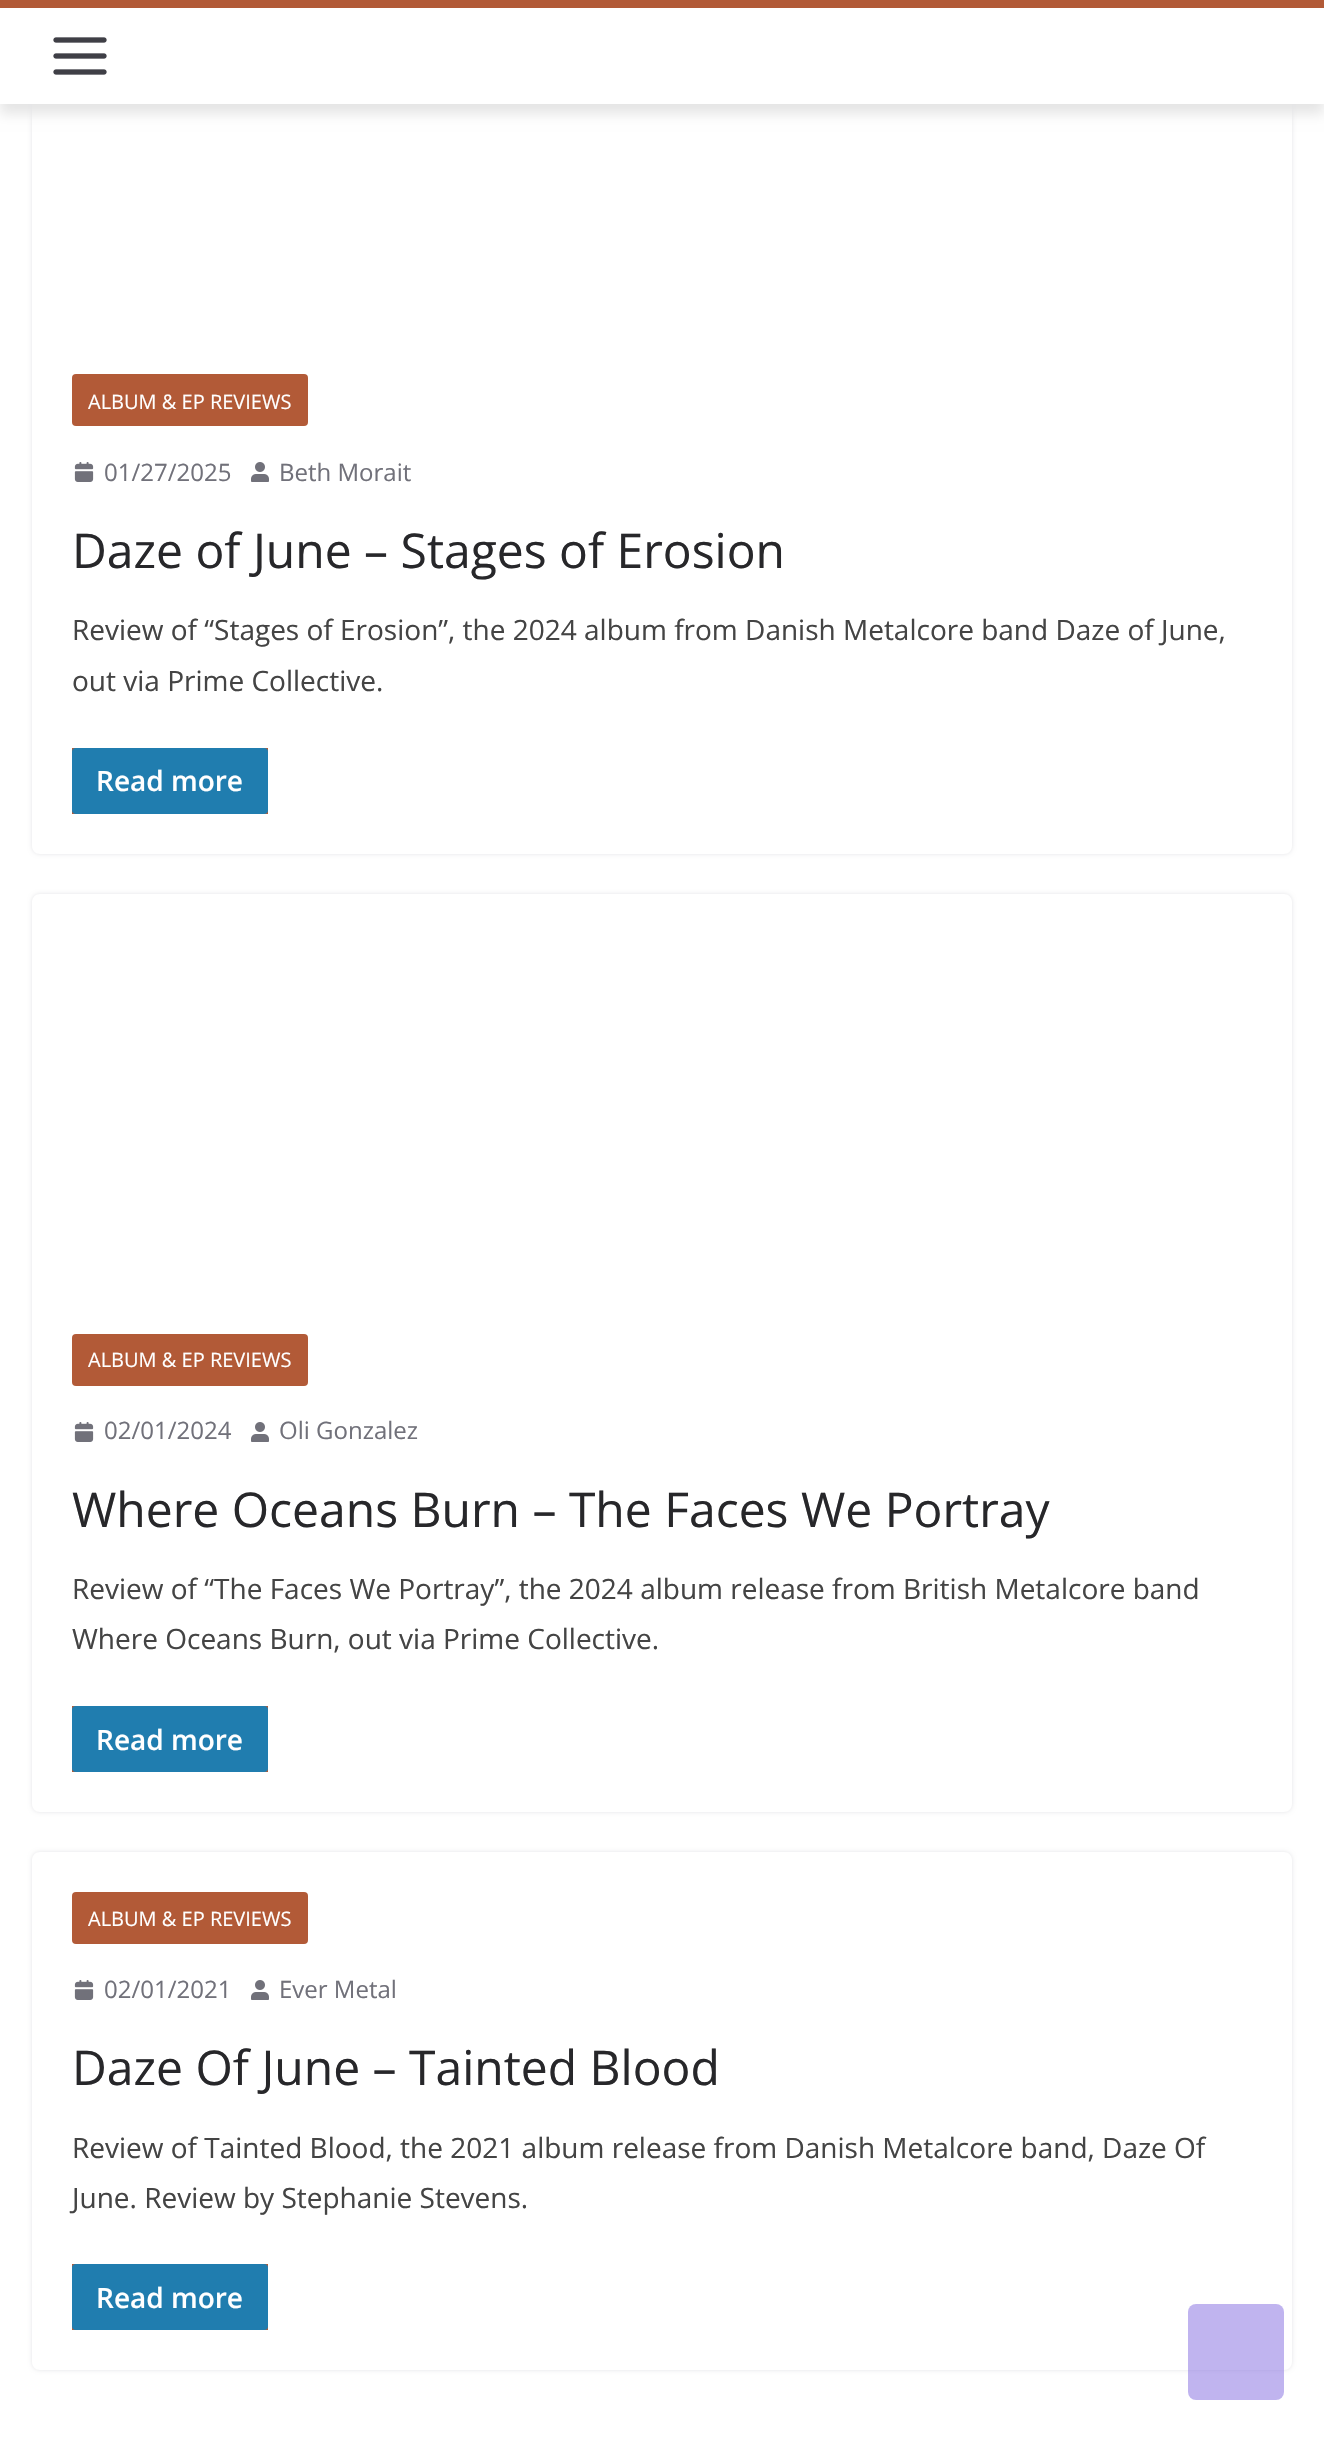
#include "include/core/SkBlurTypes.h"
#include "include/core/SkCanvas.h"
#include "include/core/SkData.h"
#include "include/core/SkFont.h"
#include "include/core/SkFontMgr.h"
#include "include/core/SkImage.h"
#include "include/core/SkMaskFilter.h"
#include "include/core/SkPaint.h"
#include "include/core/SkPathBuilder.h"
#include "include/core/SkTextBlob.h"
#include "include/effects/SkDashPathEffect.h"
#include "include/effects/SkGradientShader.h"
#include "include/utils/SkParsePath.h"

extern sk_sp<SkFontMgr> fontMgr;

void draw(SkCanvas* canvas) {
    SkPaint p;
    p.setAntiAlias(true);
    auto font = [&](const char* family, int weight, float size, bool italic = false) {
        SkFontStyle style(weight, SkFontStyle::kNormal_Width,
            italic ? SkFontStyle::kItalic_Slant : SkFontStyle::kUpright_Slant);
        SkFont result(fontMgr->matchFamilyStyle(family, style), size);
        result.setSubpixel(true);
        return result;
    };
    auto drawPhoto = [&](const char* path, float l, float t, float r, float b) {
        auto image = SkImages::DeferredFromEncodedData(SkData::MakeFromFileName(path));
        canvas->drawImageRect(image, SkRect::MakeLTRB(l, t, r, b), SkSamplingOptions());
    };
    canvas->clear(0xFFFFFFFF);
    p.setColor(0x1A000000);
    p.setMaskFilter(SkMaskFilter::MakeBlur(kNormal_SkBlurStyle, 6));
    canvas->drawRect(SkRect::MakeLTRB(0, 10, 1324, 114), p);
    p.setMaskFilter(nullptr);
    canvas->save();
    canvas->clipPath(SkPathBuilder(SkPathFillType::kEvenOdd).moveTo(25, 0).lineTo(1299, 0).lineTo(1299, 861).lineTo(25, 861).close().moveTo(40, -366).lineTo(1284, -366).cubicTo(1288.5f, -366, 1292, -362.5f, 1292, -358).lineTo(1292, 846).cubicTo(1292, 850.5f, 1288.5f, 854, 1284, 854).lineTo(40, 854).cubicTo(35.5f, 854, 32, 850.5f, 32, 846).lineTo(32, -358).cubicTo(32, -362.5f, 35.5f, -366, 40, -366).close().detach(), true);
    p.setColor(0xFFE4E4E7);
    p.setMaskFilter(SkMaskFilter::MakeBlur(kNormal_SkBlurStyle, 2));
    canvas->drawRoundRect(SkRect::MakeLTRB(32, -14, 1292, 854), 8, 8, p);
    p.setMaskFilter(nullptr);
    canvas->restore();
    p.setColor(0xFFFFFFFF);
    canvas->drawRect(SkRect::MakeLTRB(0, 8, 1324, 104), p);
    p.setColor(0xFFB25A37);
    canvas->drawRect(SkRect::MakeLTRB(0, 0, 1324, 8), p);
    drawPhoto("media/1.png", 53, 37, 107, 75);
    canvas->drawRoundRect(SkRect::MakeLTRB(72, 374, 308, 426), 4, 4, p);
    auto font1 = font("Open Sans", 400, 20);
    p.setColor(0xFFFFFFFF);
    canvas->drawString("ALBUM & EP REVIEWS", 88, 409, font1, p);
    drawPhoto("media/2.png", 74, 462, 94, 482);
    auto font2 = font("Open Sans", 400, 24);
    p.setColor(0xFF71717A);
    canvas->drawString("01/27/2025", 104, 481, font2, p);
    drawPhoto("media/3.png", 251, 462, 269, 482);
    canvas->drawString("Beth Morait", 279, 481, font2, p);
    auto font3 = font("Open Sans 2", 400, 48);
    p.setColor(0xFF27272A);
    canvas->drawString("Daze of June – Stages of Erosion", 72, 568, font3, p);
    auto font4 = font("Open Sans", 400, 28);
    p.setColor(0xFF444444);
    canvas->drawString("Review of “Stages of Erosion”, the 2024 album from Danish Metalcore band Daze of June,", 72, 640, font4, p);
    canvas->drawString("out via Prime Collective.", 72, 691, font4, p);
    p.setColor(0xFFB25A37);
    canvas->drawRect(SkRect::MakeLTRB(72, 748, 268, 814), p);
    p.setColor(0xFF207DAF);
    canvas->drawRoundRect(SkRect::MakeLTRB(72, 748, 268, 814), 4, 4, p);
    auto font5 = font("Open Sans", 600, 28);
    p.setColor(0xFFFFFFFF);
    canvas->drawString("Read more", 96, 791, font5, p);
    canvas->save();
    canvas->clipPath(SkPathBuilder(SkPathFillType::kEvenOdd).moveTo(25, 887).lineTo(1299, 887).lineTo(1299, 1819).lineTo(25, 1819).close().moveTo(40, 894).lineTo(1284, 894).cubicTo(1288.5f, 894, 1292, 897.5f, 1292, 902).lineTo(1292, 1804).cubicTo(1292, 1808.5f, 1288.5f, 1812, 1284, 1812).lineTo(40, 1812).cubicTo(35.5f, 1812, 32, 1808.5f, 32, 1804).lineTo(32, 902).cubicTo(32, 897.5f, 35.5f, 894, 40, 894).close().detach(), true);
    p.setColor(0xFFE4E4E7);
    p.setMaskFilter(SkMaskFilter::MakeBlur(kNormal_SkBlurStyle, 2));
    canvas->drawRoundRect(SkRect::MakeLTRB(32, 894, 1292, 1812), 8, 8, p);
    p.setMaskFilter(nullptr);
    canvas->restore();
    p.setColor(0xFFB25A37);
    canvas->drawRoundRect(SkRect::MakeLTRB(72, 1334, 308, 1386), 4, 4, p);
    p.setColor(0xFFFFFFFF);
    canvas->drawString("ALBUM & EP REVIEWS", 88, 1367, font1, p);
    drawPhoto("media/2.png", 74, 1422, 94, 1442);
    p.setColor(0xFF71717A);
    canvas->drawString("02/01/2024", 104, 1439, font2, p);
    drawPhoto("media/3.png", 251, 1422, 269, 1442);
    canvas->drawString("Oli Gonzalez", 279, 1439, font2, p);
    p.setColor(0xFF27272A);
    canvas->drawString("Where Oceans Burn – The Faces We Portray", 72, 1527, font3, p);
    p.setColor(0xFF444444);
    canvas->drawString("Review of “The Faces We Portray”, the 2024 album release from British Metalcore band", 72, 1599, font4, p);
    canvas->drawString("Where Oceans Burn, out via Prime Collective.", 72, 1649, font4, p);
    p.setColor(0xFFB25A37);
    canvas->drawRect(SkRect::MakeLTRB(72, 1706, 268, 1772), p);
    p.setColor(0xFF207DAF);
    canvas->drawRoundRect(SkRect::MakeLTRB(72, 1706, 268, 1772), 4, 4, p);
    p.setColor(0xFFFFFFFF);
    canvas->drawString("Read more", 96, 1750, font5, p);
    canvas->save();
    canvas->clipPath(SkPathBuilder(SkPathFillType::kEvenOdd).moveTo(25, 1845).lineTo(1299, 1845).lineTo(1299, 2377).lineTo(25, 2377).close().moveTo(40, 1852).lineTo(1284, 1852).cubicTo(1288.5f, 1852, 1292, 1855.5f, 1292, 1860).lineTo(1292, 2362).cubicTo(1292, 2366.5f, 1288.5f, 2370, 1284, 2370).lineTo(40, 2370).cubicTo(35.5f, 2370, 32, 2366.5f, 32, 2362).lineTo(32, 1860).cubicTo(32, 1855.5f, 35.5f, 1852, 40, 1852).close().detach(), true);
    p.setColor(0xFFE4E4E7);
    p.setMaskFilter(SkMaskFilter::MakeBlur(kNormal_SkBlurStyle, 2));
    canvas->drawRoundRect(SkRect::MakeLTRB(32, 1852, 1292, 2370), 8, 8, p);
    p.setMaskFilter(nullptr);
    canvas->restore();
    p.setColor(0xFFB25A37);
    canvas->drawRoundRect(SkRect::MakeLTRB(72, 1892, 308, 1944), 4, 4, p);
    p.setColor(0xFFFFFFFF);
    canvas->drawString("ALBUM & EP REVIEWS", 88, 1926, font1, p);
    drawPhoto("media/2.png", 74, 1980, 94, 2000);
    p.setColor(0xFF71717A);
    canvas->drawString("02/01/2021", 104, 1998, font2, p);
    drawPhoto("media/3.png", 251, 1980, 269, 2000);
    canvas->drawString("Ever Metal", 279, 1998, font2, p);
    p.setColor(0xFF27272A);
    canvas->drawString("Daze Of June – Tainted Blood", 72, 2085, font3, p);
    p.setColor(0xFF444444);
    canvas->drawString("Review of Tainted Blood, the 2021 album release from Danish Metalcore band, Daze Of", 72, 2158, font4, p);
    canvas->drawString("June. Review by Stephanie Stevens.", 72, 2208, font4, p);
    p.setColor(0xFFB25A37);
    canvas->drawRect(SkRect::MakeLTRB(72, 2264, 268, 2330), p);
    p.setColor(0xFF207DAF);
    canvas->drawRoundRect(SkRect::MakeLTRB(72, 2264, 268, 2330), 4, 4, p);
    p.setColor(0xFFFFFFFF);
    canvas->drawString("Read more", 96, 2308, font5, p);
    p.setColor(0x808269DF);
    canvas->drawRoundRect(SkRect::MakeLTRB(1188, 2304, 1284, 2400), 8, 8, p);
}
